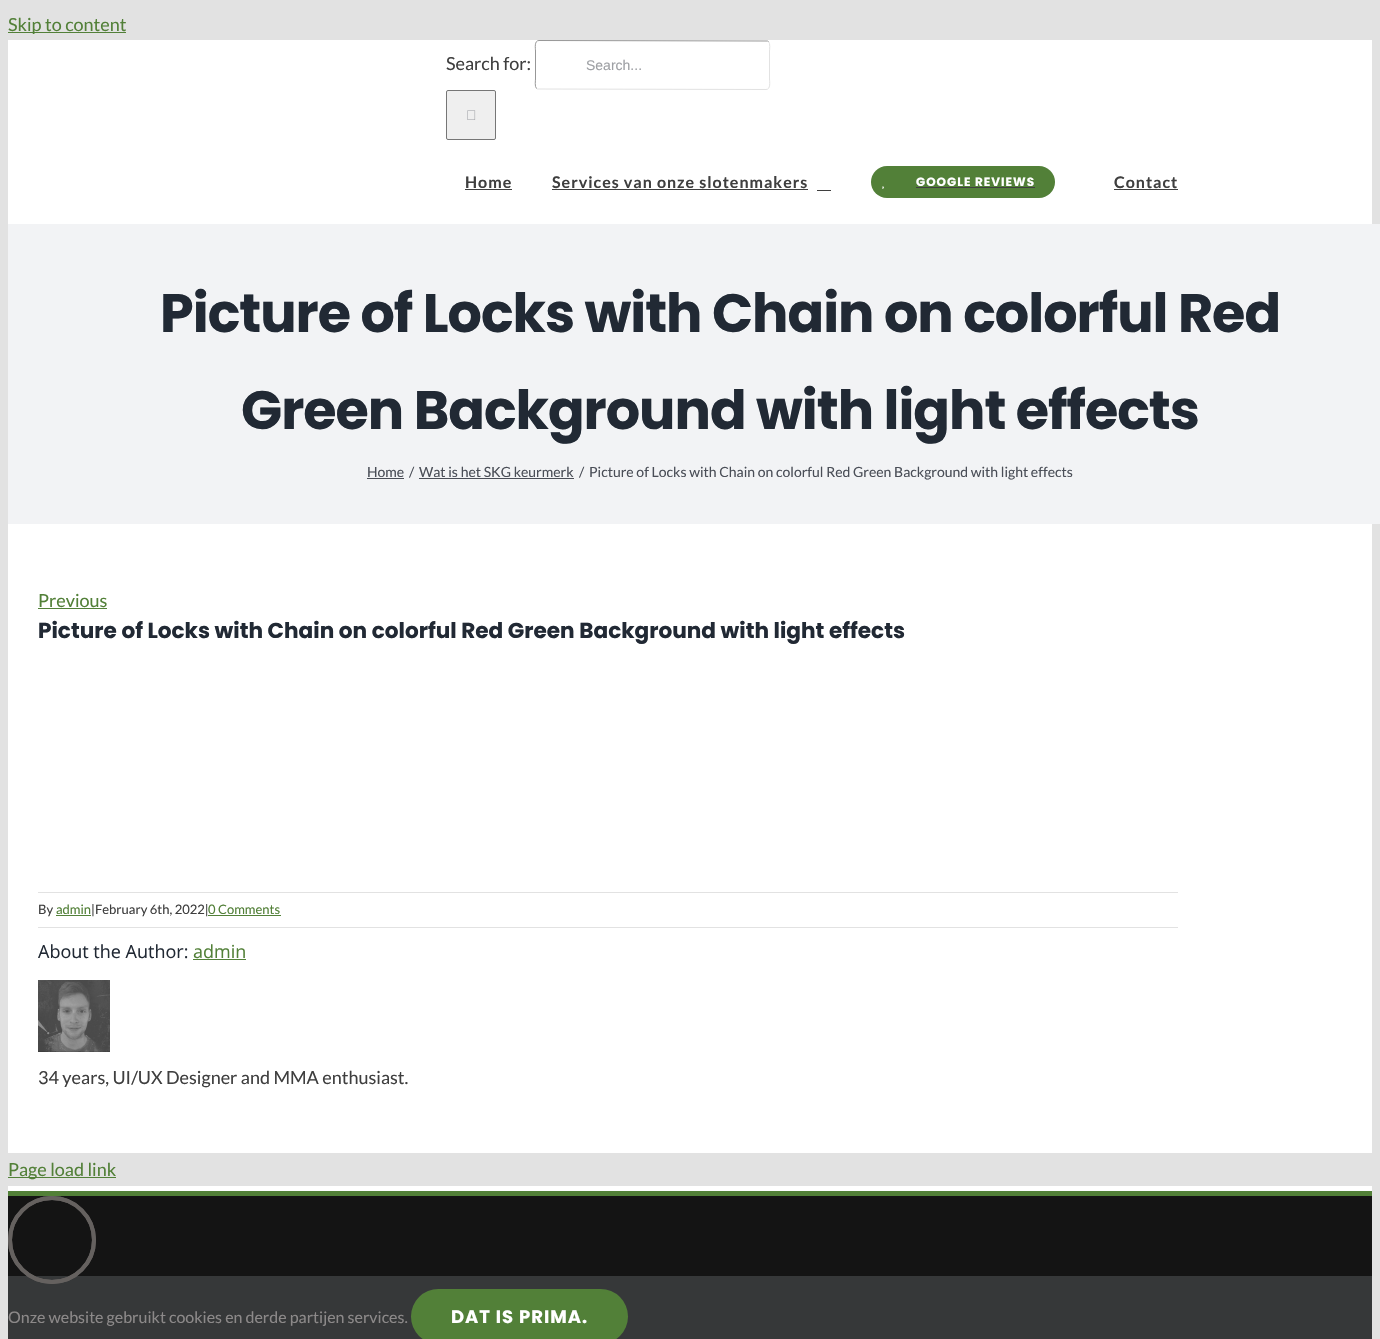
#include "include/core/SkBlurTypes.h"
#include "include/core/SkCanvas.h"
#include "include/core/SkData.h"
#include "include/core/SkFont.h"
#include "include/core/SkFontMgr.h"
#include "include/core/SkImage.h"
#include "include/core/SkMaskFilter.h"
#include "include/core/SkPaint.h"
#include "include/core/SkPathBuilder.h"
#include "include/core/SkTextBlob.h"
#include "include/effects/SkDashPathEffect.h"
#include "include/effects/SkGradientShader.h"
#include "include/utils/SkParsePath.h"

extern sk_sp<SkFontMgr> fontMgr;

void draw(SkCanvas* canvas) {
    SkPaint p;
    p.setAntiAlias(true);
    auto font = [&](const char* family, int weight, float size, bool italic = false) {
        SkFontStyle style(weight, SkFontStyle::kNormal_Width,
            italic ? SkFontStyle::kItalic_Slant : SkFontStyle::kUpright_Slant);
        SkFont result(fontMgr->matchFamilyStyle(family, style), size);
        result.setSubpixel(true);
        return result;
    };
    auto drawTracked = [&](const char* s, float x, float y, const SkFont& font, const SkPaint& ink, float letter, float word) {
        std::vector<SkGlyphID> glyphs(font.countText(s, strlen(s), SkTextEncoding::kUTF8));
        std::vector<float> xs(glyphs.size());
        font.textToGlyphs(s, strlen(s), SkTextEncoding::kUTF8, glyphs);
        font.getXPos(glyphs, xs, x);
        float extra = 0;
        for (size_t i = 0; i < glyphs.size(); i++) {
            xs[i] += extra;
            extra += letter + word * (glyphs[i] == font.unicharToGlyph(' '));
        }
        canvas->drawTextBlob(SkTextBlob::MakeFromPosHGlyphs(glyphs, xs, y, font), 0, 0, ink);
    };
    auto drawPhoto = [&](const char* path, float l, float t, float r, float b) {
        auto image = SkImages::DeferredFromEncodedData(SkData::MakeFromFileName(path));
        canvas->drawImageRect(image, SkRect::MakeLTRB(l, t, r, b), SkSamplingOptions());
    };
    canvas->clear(0xFFE2E2E2);
    p.setColor(0xFF528038);
    canvas->drawRect(SkRect::MakeLTRB(8, 32, 126, 33), p);
    auto font1 = font("Lato", 400, 18);
    canvas->drawString("Skip to content", 8, 31, font1, p);
    p.setColor(0xFFFFFFFF);
    canvas->drawRect(SkRect::MakeLTRB(8, 40, 1372, 1153), p);
    p.setColor(0xFF3F3F3F);
    canvas->drawString("Search for:", 446, 70, font1, p);
    p.setStyle(SkPaint::kStroke_Style);
    p.setStrokeWidth(1);
    p.setColor(0xFFE2E2E2);
    canvas->drawPath(SkPathBuilder().moveTo(768.5f, 41.5f).cubicTo(770.5f, 43.5f, 769.5f, 49.5f, 769.5f, 51).lineTo(769.5f, 79).cubicTo(769.5f, 81.5f, 771, 89.5f, 766, 89.5f).lineTo(537.5f, 89).lineTo(536.5f, 88.5f).detach(), p);
    p.setColor(0xFF979797);
    canvas->drawPath(SkPathBuilder().moveTo(536.5f, 88.5f).cubicTo(534.5f, 86.5f, 535.5f, 80.5f, 535.5f, 79).lineTo(535.5f, 51).cubicTo(535.5f, 48.5f, 534, 40.5f, 539, 40.5f).lineTo(767.5f, 41).lineTo(768.5f, 41.5f).detach(), p);
    auto font2 = font("Liberation Sans", 400, 14);
    p.setStyle(SkPaint::kFill_Style);
    p.setColor(0xFF9EA0A4);
    canvas->drawString("Search...", 586, 70, font2, p);
    p.setColor(0xFFEFEFEF);
    canvas->drawRoundRect(SkRect::MakeLTRB(446.5f, 90.5f, 495.5f, 139.5f), 1.5f, 1.5f, p);
    p.setStyle(SkPaint::kStroke_Style);
    p.setColor(0xFF767676);
    canvas->drawRoundRect(SkRect::MakeLTRB(446.5f, 90.5f, 495.5f, 139.5f), 1.5f, 1.5f, p);
    drawPhoto("media/1.png", 467, 110, 476, 120);
    auto font3 = font("Lato", 700, 16);
    p.setStyle(SkPaint::kFill_Style);
    p.setColor(0xFF3F3F3F);
    drawTracked("Home", 465, 188, font3, p, 1, 0);
    canvas->drawRect(SkRect::MakeLTRB(465, 189, 512, 190), p);
    drawTracked("Services van onze slotenmakers", 552, 188, font3, p, 1, 0);
    canvas->drawRect(SkRect::MakeLTRB(552, 189, 808, 190), p);
    canvas->drawRect(SkRect::MakeLTRB(817, 190, 831, 191), p);
    p.setColor(0xFF528038);
    canvas->drawRoundRect(SkRect::MakeLTRB(871, 166, 1055, 198), 16, 16, p);
    auto font4 = font("Poppins", 700, 12);
    p.setColor(0xFFFFFFFF);
    drawTracked("GOOGLE REVIEWS", 916, 186, font4, p, 1, 0);
    p.setColor(0xFF3F3F3F);
    canvas->drawRect(SkRect::MakeLTRB(916, 187, 1035, 188), p);
    drawPhoto("media/2.png", 882, 186, 884, 189);
    drawTracked("Contact", 1114, 188, font3, p, 1, 0);
    canvas->drawRect(SkRect::MakeLTRB(1114, 189, 1178, 190), p);
    p.setColor(0xFFF2F3F5);
    canvas->drawRect(SkRect::MakeLTRB(8, 224, 1380, 524), p);
    auto font5 = font("Poppins", 700, 54);
    p.setColor(0xFF212934);
    drawTracked("Picture of Locks with Chain on colorful Red", 160, 332, font5, p, -1, 0);
    drawTracked("Green Background with light effects", 241, 429, font5, p, -1, 0);
    auto font6 = font("Lato", 400, 14);
    p.setColor(0xFF4A4E57);
    canvas->drawString("Home", 367, 477, font6, p);
    canvas->drawRect(SkRect::MakeLTRB(367, 478, 404, 479), p);
    canvas->drawString("/", 409, 477, font6, p);
    canvas->drawString("Wat is het SKG keurmerk", 419, 477, font6, p);
    canvas->drawRect(SkRect::MakeLTRB(419, 478, 574, 479), p);
    canvas->drawString("/", 579, 477, font6, p);
    canvas->drawString("Picture of Locks with Chain on colorful Red Green Background with light effects", 589, 477, font6, p);
    p.setColor(0xFF528038);
    canvas->drawString("Previous", 38, 607, font1, p);
    canvas->drawRect(SkRect::MakeLTRB(38, 608, 107, 609), p);
    auto font7 = font("Poppins", 700, 21.6f);
    p.setColor(0xFF212934);
    canvas->drawString("Picture of Locks with Chain on colorful Red Green Background with light effects", 38, 638, font7, p);
    p.setColor(0xFFE2E2E2);
    canvas->drawRect(SkRect::MakeLTRB(38, 892, 1178, 893), p);
    canvas->drawRect(SkRect::MakeLTRB(38, 927, 1178, 928), p);
    auto font8 = font("Lato", 400, 13);
    p.setColor(0xFF3F3F3F);
    canvas->drawString("By", 38, 914, font8, p);
    p.setColor(0xFF528038);
    canvas->drawString("admin", 56, 914, font8, p);
    canvas->drawRect(SkRect::MakeLTRB(56, 915, 91, 916), p);
    p.setColor(0xFF3F3F3F);
    canvas->drawString("|February 6th, 2022|", 91, 914, font8, p);
    p.setColor(0xFF528038);
    canvas->drawString("0 Comments", 208, 914, font8, p);
    canvas->drawRect(SkRect::MakeLTRB(208, 915, 281, 916), p);
    auto font9 = font("Open Sans", 400, 18);
    p.setColor(0xFF212934);
    canvas->drawString("About the Author:", 38, 958, font9, p);
    p.setColor(0xFF528038);
    canvas->drawString("admin", 193, 958, font9, p);
    canvas->drawRect(SkRect::MakeLTRB(193, 959, 246, 960), p);
    drawPhoto("media/3.png", 38, 980, 110, 1052);
    p.setColor(0xFF3F3F3F);
    canvas->drawString("34 years, UI/UX Designer and MMA enthusiast.", 38, 1084, font1, p);
    p.setColor(0xFF528038);
    canvas->drawRect(SkRect::MakeLTRB(8, 1177, 116, 1178), p);
    canvas->drawString("Page load link", 8, 1176, font1, p);
    {
        const struct { float l, t, r, b; SkColor color; } items[] = {
            {8, 1196, 1372, 1276, 0xFF141414},
            {8, 1186, 1372, 1191, 0xFFFFFFFF},
            {8, 1191, 1372, 1196, 0xFF528038},
            {8, 1276, 1372, 1339, 0xFF363839},
        };
        for (auto [l, t, r, b, color] : items) {
            p.setColor(color);
            canvas->drawRect(SkRect::MakeLTRB(l, t, r, b), p);
        }
    }
    p.setStyle(SkPaint::kStroke_Style);
    p.setStrokeWidth(4);
    p.setColor(0xFF65615F);
    canvas->drawCircle(52, 1240, 42, p);
    canvas->drawCircle(52, 1240, 42, p);
    auto font10 = font("Lato", 400, 16);
    p.setStyle(SkPaint::kFill_Style);
    p.setColor(0xFF8C8989);
    canvas->drawString("Onze website gebruikt cookies en derde partijen services.", 8, 1323, font10, p);
    p.setColor(0xFF528038);
    canvas->drawRoundRect(SkRect::MakeLTRB(411, 1289, 628, 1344), 27.5f, 27.5f, p);
    auto font11 = font("Poppins", 700, 18);
    p.setColor(0xFFFFFFFF);
    drawTracked("DAT IS PRIMA.", 451, 1323, font11, p, 1, 0);
}
